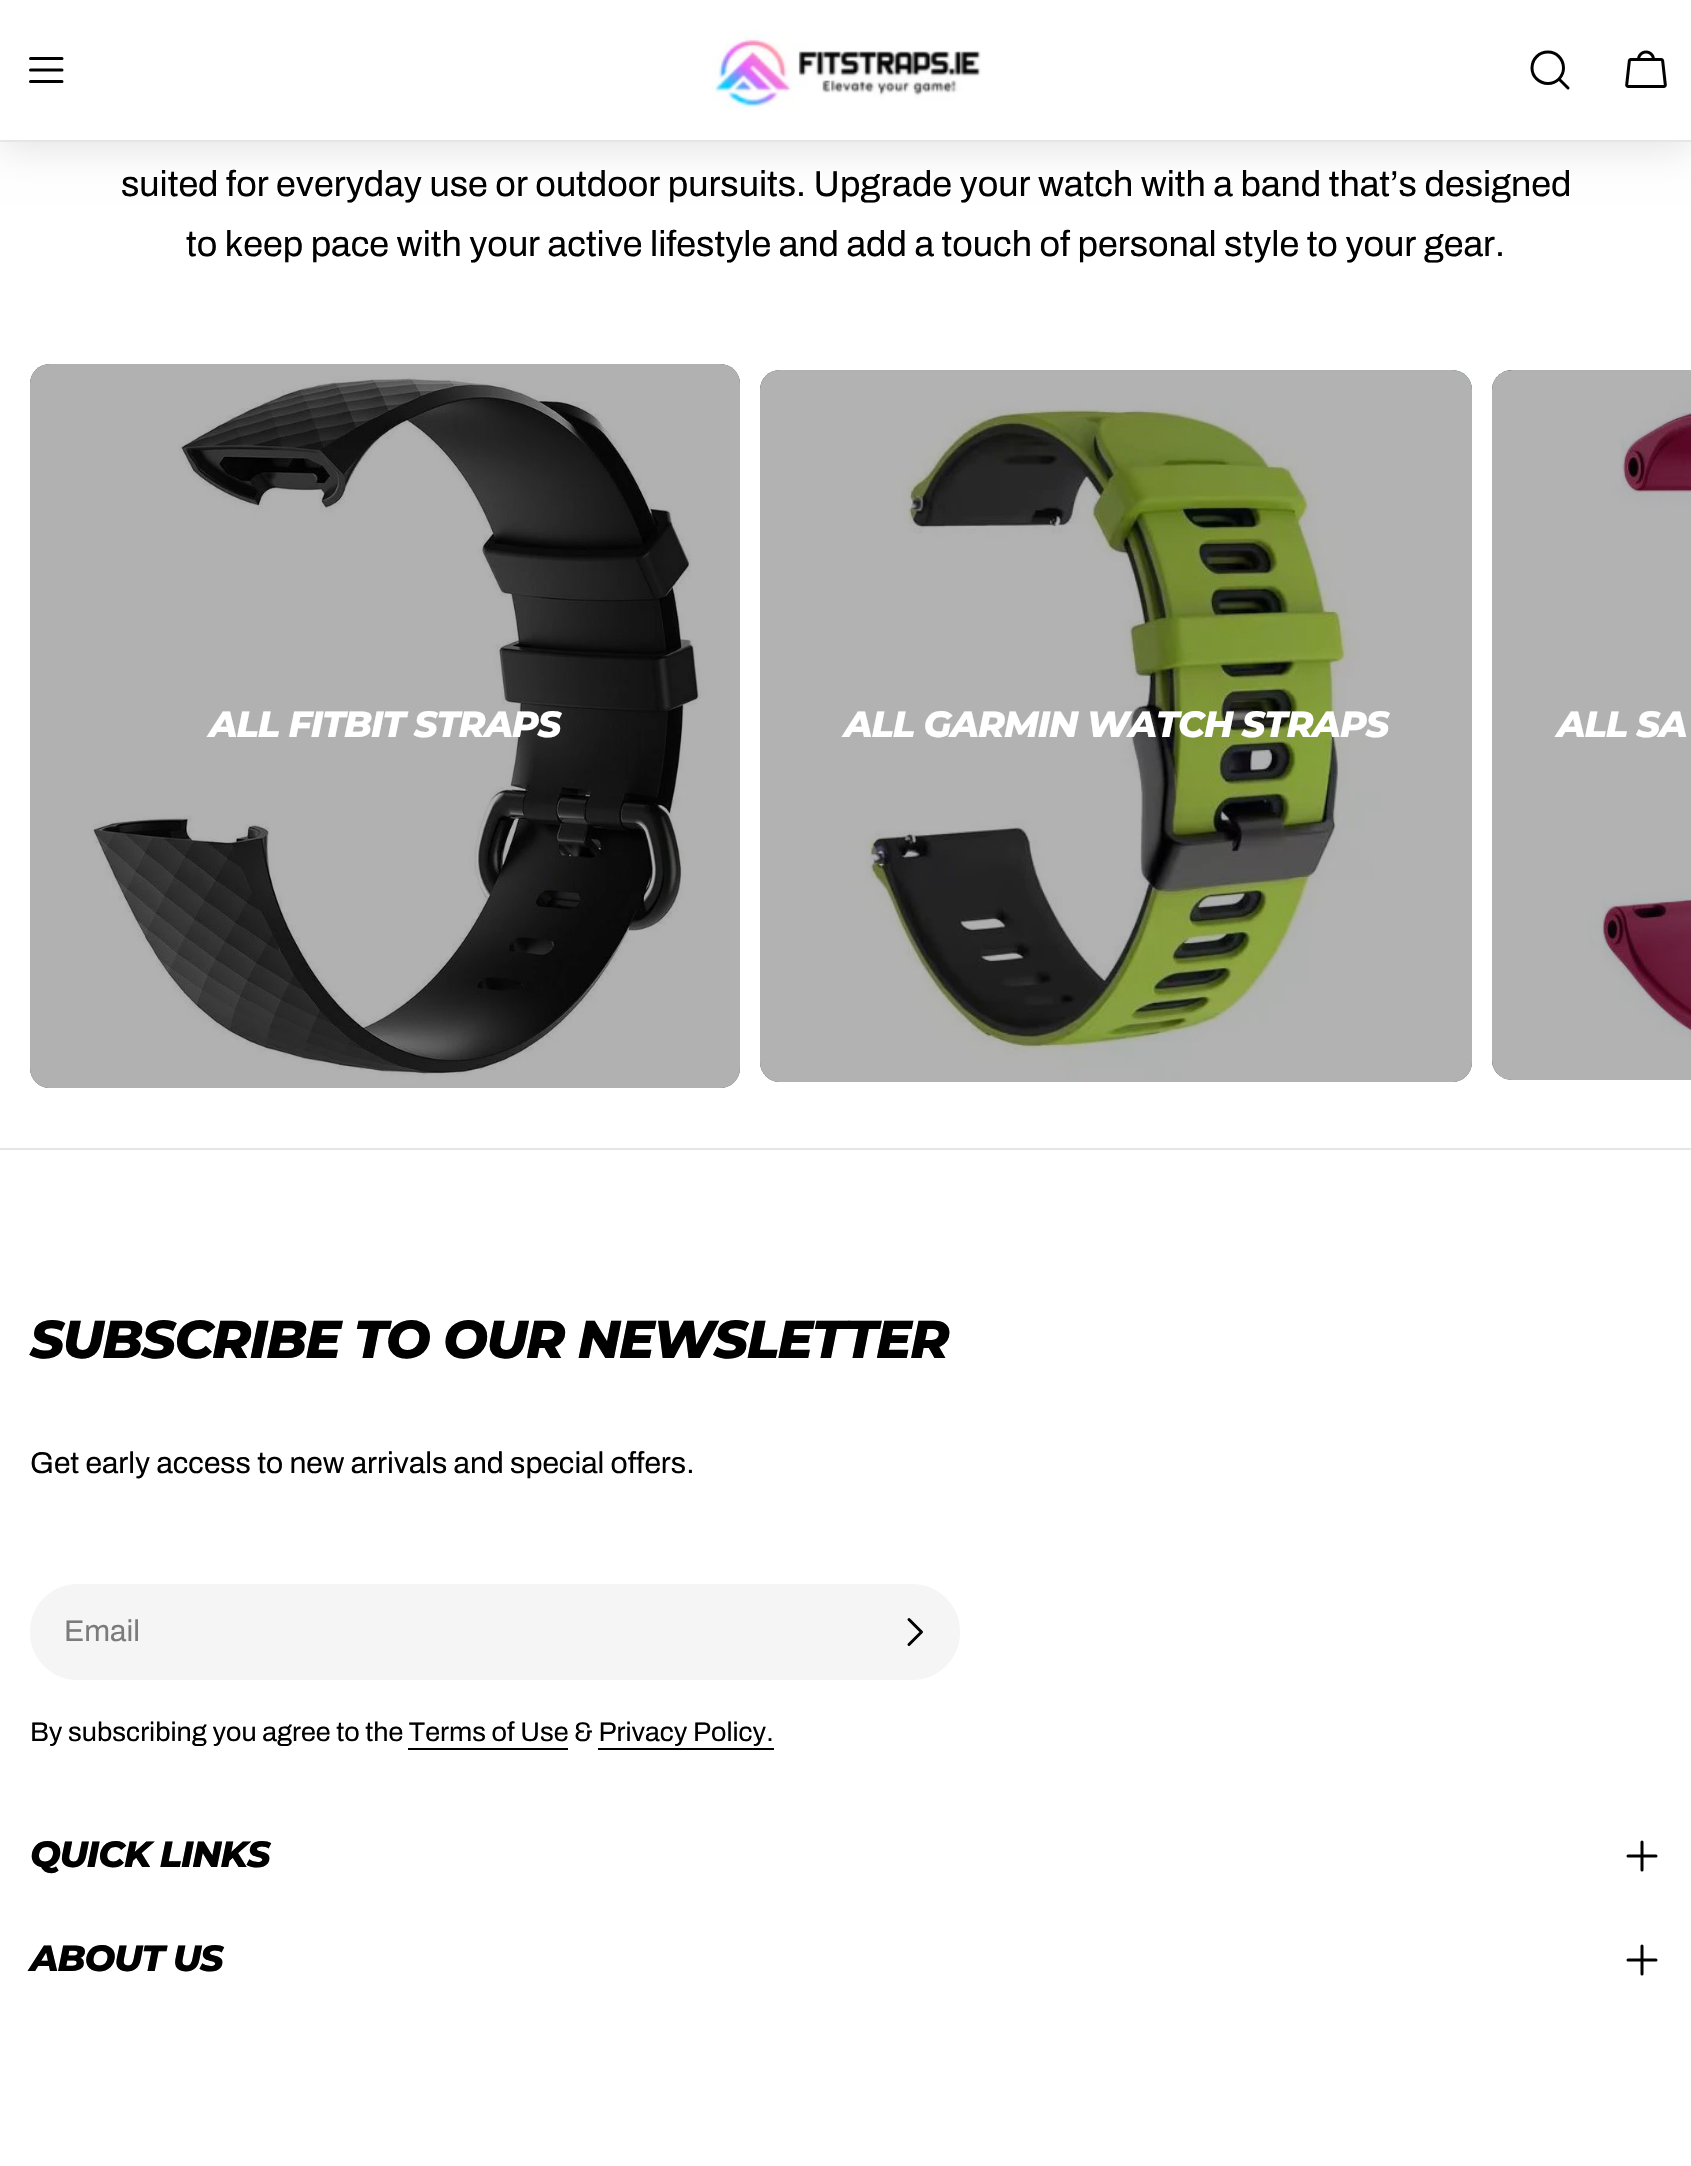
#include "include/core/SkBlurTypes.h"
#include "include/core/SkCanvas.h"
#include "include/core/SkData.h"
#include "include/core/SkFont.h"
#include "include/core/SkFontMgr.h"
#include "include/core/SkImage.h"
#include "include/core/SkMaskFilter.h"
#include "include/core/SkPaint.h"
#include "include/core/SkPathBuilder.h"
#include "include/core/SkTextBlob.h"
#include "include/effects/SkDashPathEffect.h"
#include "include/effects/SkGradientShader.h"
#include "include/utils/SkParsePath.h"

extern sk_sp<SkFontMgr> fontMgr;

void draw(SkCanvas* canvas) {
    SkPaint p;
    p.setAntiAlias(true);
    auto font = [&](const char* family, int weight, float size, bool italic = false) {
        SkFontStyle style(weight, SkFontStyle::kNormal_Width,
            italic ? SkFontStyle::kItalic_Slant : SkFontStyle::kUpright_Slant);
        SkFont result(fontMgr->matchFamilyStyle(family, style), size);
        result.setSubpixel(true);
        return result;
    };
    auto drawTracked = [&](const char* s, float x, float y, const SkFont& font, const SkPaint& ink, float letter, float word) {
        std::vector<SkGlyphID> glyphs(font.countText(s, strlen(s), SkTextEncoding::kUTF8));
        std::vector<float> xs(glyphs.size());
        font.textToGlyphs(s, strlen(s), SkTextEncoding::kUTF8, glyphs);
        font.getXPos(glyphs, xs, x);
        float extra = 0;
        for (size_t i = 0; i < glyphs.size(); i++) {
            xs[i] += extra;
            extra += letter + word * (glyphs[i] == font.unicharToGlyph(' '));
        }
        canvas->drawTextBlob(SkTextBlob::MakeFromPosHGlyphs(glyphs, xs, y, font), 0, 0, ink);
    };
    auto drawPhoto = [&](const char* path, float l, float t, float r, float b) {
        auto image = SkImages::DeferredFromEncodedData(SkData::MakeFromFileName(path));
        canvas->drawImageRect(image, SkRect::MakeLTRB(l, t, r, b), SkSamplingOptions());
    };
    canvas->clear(0xFFFFFFFF);
    p.setColor(0x1A000000);
    p.setMaskFilter(SkMaskFilter::MakeBlur(kNormal_SkBlurStyle, 18));
    canvas->drawRect(SkRect::MakeLTRB(0, 8, 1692, 150), p);
    p.setMaskFilter(nullptr);
    p.setColor(0xFFE6E6E6);
    canvas->drawRect(SkRect::MakeLTRB(0, 140, 1691, 142), p);
    p.setColor(0xFFFFFFFF);
    canvas->drawRect(SkRect::MakeLTRB(0, 0, 1691, 140), p);
    p.setStyle(SkPaint::kStroke_Style);
    p.setStrokeWidth(3);
    p.setStrokeCap(SkPaint::kRound_Cap);
    p.setStrokeJoin(SkPaint::kRound_Join);
    p.setColor(0xFF000000);
    canvas->drawPath(SkPathBuilder().moveTo(30.5f, 70).lineTo(62, 70).moveTo(30.5f, 58.5f).lineTo(62, 58.5f).moveTo(30.5f, 81.5f).lineTo(62, 81.5f).detach(), p);
    drawPhoto("media/1.png", 712, 30, 981, 109);
    canvas->drawPath(SkPathBuilder().moveTo(1548, 83.5f).cubicTo(1556.5f, 83.5f, 1563.5f, 76.5f, 1563.5f, 68).cubicTo(1563.5f, 59, 1556.5f, 52, 1548, 52).cubicTo(1539, 52, 1532, 59, 1532, 68).cubicTo(1532, 76.5f, 1539, 83.5f, 1548, 83.5f).close().moveTo(1559, 79).lineTo(1568, 88).detach(), p);
    drawPhoto("media/2.png", 1625, 50, 1667, 88);
    auto font1 = font("Archivo", 400, 36);
    p.setStyle(SkPaint::kFill_Style);
    canvas->drawString("suited for everyday use or outdoor pursuits. Upgrade your watch with a band that’s designed", 121, 196, font1, p);
    canvas->drawString("to keep pace with your active lifestyle and add a touch of personal style to your gear.", 186, 256, font1, p);
    p.setColor(0xFF07272E);
    canvas->drawRoundRect(SkRect::MakeLTRB(30, 364, 740, 1088), 20, 20, p);
    drawPhoto("media/3.png", 30, 364, 740, 1088);
    p.setColor(0x4D000000);
    canvas->drawRoundRect(SkRect::MakeLTRB(30, 364, 740, 1088), 20, 20, p);
    auto font2 = font("Montserrat", 800, 36.5f, true);
    p.setColor(0xFFFFFFFF);
    drawTracked("ALL FITBIT STRAPS", 209, 737, font2, p, -1.1f, 0);
    p.setColor(0xFF07272E);
    canvas->drawRoundRect(SkRect::MakeLTRB(760, 370, 1472, 1082), 20, 20, p);
    drawPhoto("media/4.png", 760, 370, 1472, 1082);
    p.setColor(0x4D000000);
    canvas->drawRoundRect(SkRect::MakeLTRB(760, 370, 1472, 1082), 20, 20, p);
    p.setColor(0xFFFFFFFF);
    drawTracked("ALL GARMIN WATCH STRAPS", 844, 737, font2, p, -1.1f, 0);
    p.setColor(0xFF07272E);
    canvas->drawPath(SkPathBuilder().moveTo(1512, 370).lineTo(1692, 370).lineTo(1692, 1080).lineTo(1512, 1080).cubicTo(1501, 1080, 1492, 1071, 1492, 1060).lineTo(1492, 390).cubicTo(1492, 379, 1501, 370, 1512, 370).close().detach(), p);
    drawPhoto("media/5.png", 1492, 370, 1691, 1080);
    p.setColor(0x4D000000);
    canvas->drawPath(SkPathBuilder().moveTo(1512, 370).lineTo(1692, 370).lineTo(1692, 1080).lineTo(1512, 1080).cubicTo(1501, 1080, 1492, 1071, 1492, 1060).lineTo(1492, 390).cubicTo(1492, 379, 1501, 370, 1512, 370).close().detach(), p);
    p.setColor(0xFFFFFFFF);
    drawTracked("ALL SA", 1557, 737, font2, p, -1.1f, 0);
    p.setColor(0xFFE6E6E6);
    canvas->drawRect(SkRect::MakeLTRB(0, 1148, 1691, 1150), p);
    auto font3 = font("Montserrat", 800, 53.2f, true);
    p.setColor(0xFF000000);
    drawTracked("SUBSCRIBE TO OUR NEWSLETTER", 30, 1358, font3, p, -1.6f, 0);
    auto font4 = font("Archivo", 400, 30);
    canvas->drawString("Get early access to new arrivals and special offers.", 30, 1473, font4, p);
    p.setColor(0xFFF5F5F5);
    canvas->drawRoundRect(SkRect::MakeLTRB(31, 1585, 959, 1679), 47, 47, p);
    p.setStyle(SkPaint::kStroke_Style);
    p.setStrokeWidth(2);
    p.setStrokeCap(SkPaint::kButt_Cap);
    p.setStrokeJoin(SkPaint::kMiter_Join);
    canvas->drawRoundRect(SkRect::MakeLTRB(31, 1585, 959, 1679), 47, 47, p);
    p.setStyle(SkPaint::kFill_Style);
    p.setColor(0xFF7B7B7B);
    canvas->drawString("Email", 64, 1641, font4, p);
    p.setStyle(SkPaint::kStroke_Style);
    p.setStrokeWidth(3);
    p.setStrokeCap(SkPaint::kRound_Cap);
    p.setStrokeJoin(SkPaint::kRound_Join);
    p.setColor(0xFF000000);
    canvas->drawPath(SkPathBuilder().moveTo(909, 1619.5f).lineTo(921.5f, 1632).lineTo(909, 1644.5f).detach(), p);
    auto font5 = font("Archivo", 400, 27);
    p.setStyle(SkPaint::kFill_Style);
    canvas->drawString("By subscribing you agree to the Terms of Use & Privacy Policy.", 30, 1741, font5, p);
    canvas->drawRect(SkRect::MakeLTRB(408, 1748, 568, 1750), p);
    canvas->drawRect(SkRect::MakeLTRB(598, 1748, 774, 1750), p);
    drawTracked("QUICK LINKS", 30, 1867, font2, p, -1.1f, 0);
    p.setStyle(SkPaint::kStroke_Style);
    canvas->drawPath(SkPathBuilder().moveTo(1628, 1856).lineTo(1656, 1856).moveTo(1642, 1842).lineTo(1642, 1870).detach(), p);
    p.setStyle(SkPaint::kFill_Style);
    drawTracked("ABOUT US", 30, 1971, font2, p, -1.1f, 0);
    p.setStyle(SkPaint::kStroke_Style);
    canvas->drawPath(SkPathBuilder().moveTo(1628, 1960).lineTo(1656, 1960).moveTo(1642, 1946).lineTo(1642, 1974).detach(), p);
}
